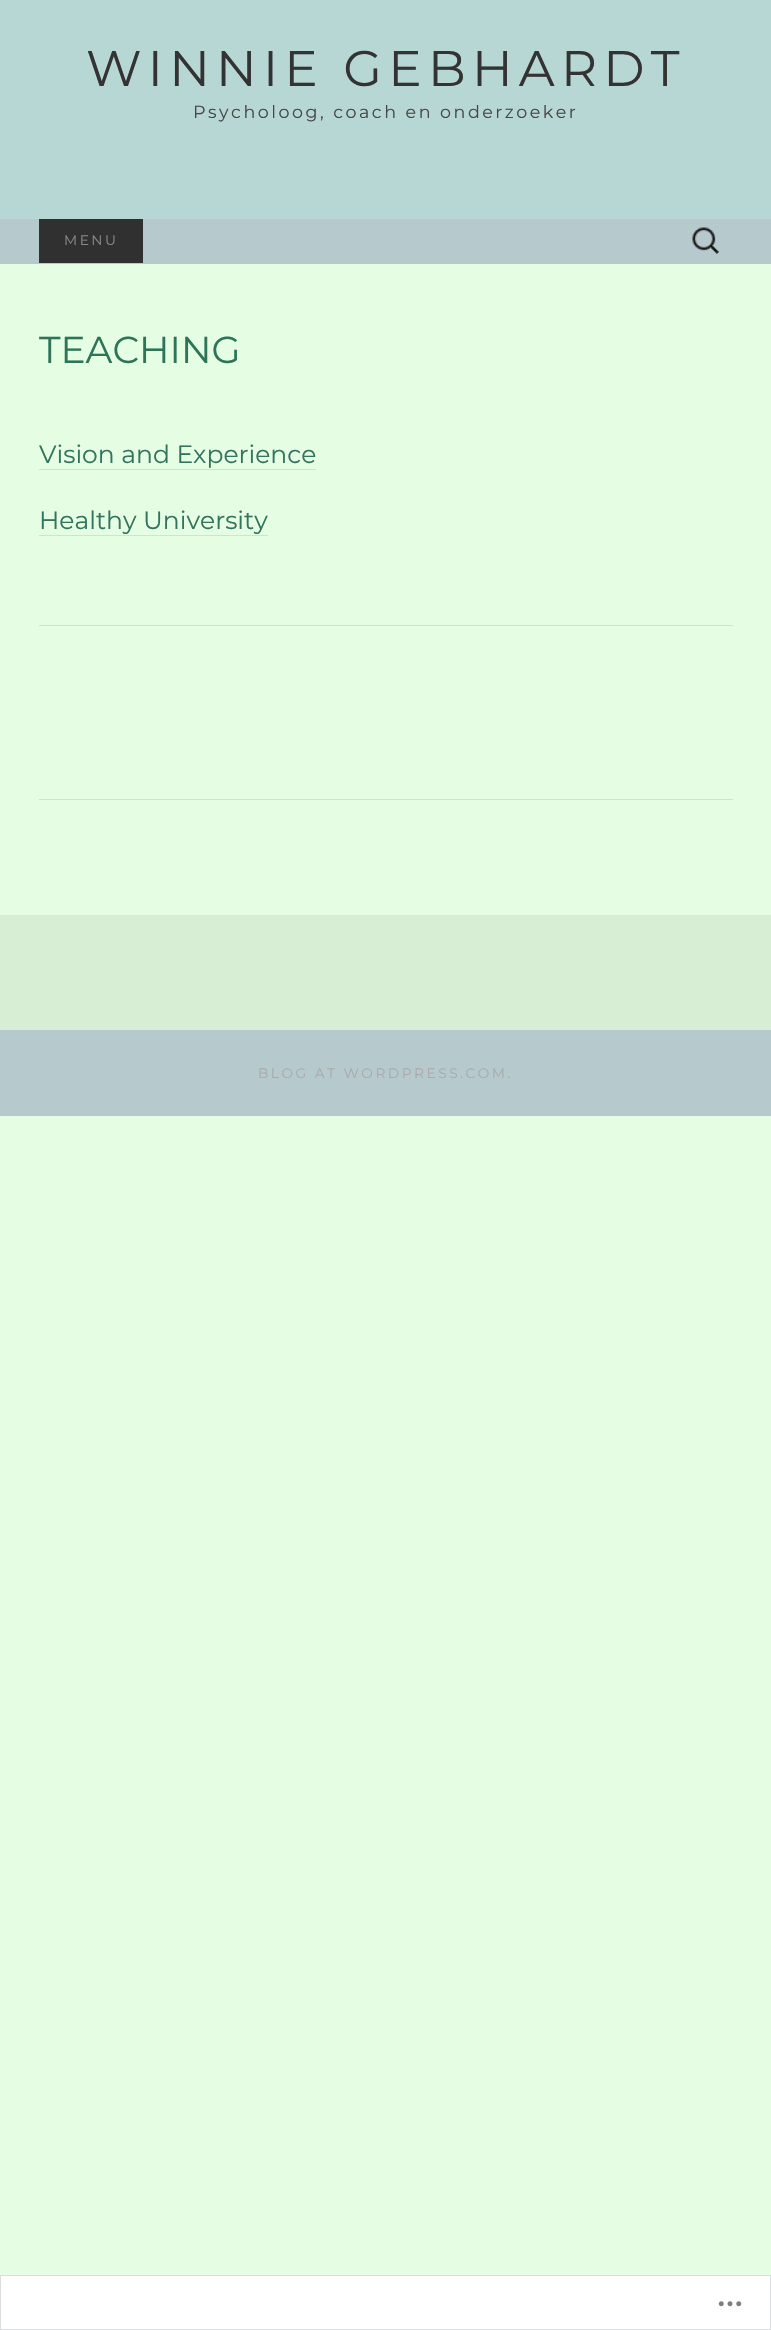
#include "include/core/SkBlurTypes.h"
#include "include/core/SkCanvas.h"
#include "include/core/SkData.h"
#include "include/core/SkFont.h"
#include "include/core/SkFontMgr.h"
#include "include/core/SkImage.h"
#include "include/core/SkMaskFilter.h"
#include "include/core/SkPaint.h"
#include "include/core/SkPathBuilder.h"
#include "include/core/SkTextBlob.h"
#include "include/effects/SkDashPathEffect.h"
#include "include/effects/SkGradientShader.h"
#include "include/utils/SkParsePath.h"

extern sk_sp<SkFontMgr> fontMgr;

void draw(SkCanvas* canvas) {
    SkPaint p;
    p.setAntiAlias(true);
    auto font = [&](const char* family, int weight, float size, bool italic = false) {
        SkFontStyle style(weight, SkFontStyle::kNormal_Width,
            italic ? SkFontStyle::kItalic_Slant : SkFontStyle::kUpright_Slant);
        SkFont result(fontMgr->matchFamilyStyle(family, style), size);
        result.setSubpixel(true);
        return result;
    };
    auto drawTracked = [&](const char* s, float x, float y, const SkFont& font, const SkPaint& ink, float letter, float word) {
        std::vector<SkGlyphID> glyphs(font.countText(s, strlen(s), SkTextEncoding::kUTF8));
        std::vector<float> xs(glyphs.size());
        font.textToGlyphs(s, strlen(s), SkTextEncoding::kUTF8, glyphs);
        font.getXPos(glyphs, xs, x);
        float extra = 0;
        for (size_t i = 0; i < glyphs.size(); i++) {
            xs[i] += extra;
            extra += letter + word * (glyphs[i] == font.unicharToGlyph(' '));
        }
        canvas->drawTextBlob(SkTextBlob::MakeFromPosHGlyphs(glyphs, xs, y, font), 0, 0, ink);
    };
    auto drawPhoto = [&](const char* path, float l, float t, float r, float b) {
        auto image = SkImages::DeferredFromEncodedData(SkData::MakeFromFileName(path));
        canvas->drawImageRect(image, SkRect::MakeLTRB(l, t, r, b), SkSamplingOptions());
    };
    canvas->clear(0xFFE5FDE2);
    p.setColor(0xFFB7D7D4);
    canvas->drawRect(SkRect::MakeLTRB(0, 0, 771, 219), p);
    auto font1 = font("Montserrat", 400, 50);
    p.setColor(0xFF333333);
    drawTracked("WINNIE GEBHARDT", 86, 86, font1, p, 6.25f, 0);
    auto font2 = font("Montserrat", 400, 17.5f);
    p.setColor(0xFF474747);
    drawTracked("Psycholoog, coach en onderzoeker", 193, 118, font2, p, 2.5f, 0);
    p.setColor(0xFFB6CACE);
    canvas->drawRect(SkRect::MakeLTRB(0, 219, 771, 264), p);
    p.setColor(0xFF303030);
    canvas->drawRect(SkRect::MakeLTRB(39, 219, 143, 263), p);
    auto font3 = font("Montserrat", 400, 13.75f);
    p.setColor(0xFF888888);
    drawTracked("MENU", 64, 245, font3, p, 2.5f, 0);
    drawPhoto("media/1.png", 692, 227, 719, 254);
    p.setColor(0xFFCEE4CB);
    canvas->drawRect(SkRect::MakeLTRB(39, 799, 733, 800), p);
    canvas->drawRect(SkRect::MakeLTRB(39, 625, 733, 626), p);
    canvas->save();
    canvas->clipRect(SkRect::MakeLTRB(39, 264, 733, 915));
    auto font4 = font("Montserrat", 400, 37.5f);
    p.setColor(0xFF2D7558);
    canvas->drawString("TEACHING", 39, 363, font4, p);
    canvas->restore();
    auto font5 = font("Montserrat", 400, 25);
    p.setColor(0xFF34745F);
    canvas->drawString("Vision and Experience", 39, 463, font5, p);
    p.setColor(0xFFCEE4CB);
    canvas->drawRect(SkRect::MakeLTRB(39, 469, 316, 470), p);
    p.setColor(0xFF34745F);
    canvas->drawString("Healthy University", 39, 529, font5, p);
    {
        const struct { float l, t, r, b; SkColor color; } items[] = {
            {39, 535, 268, 536, 0xFFCEE4CB},
            {0, 915, 771, 1030, 0xFFD7EED4},
            {0, 1030, 771, 1116, 0xFFB6CACE},
        };
        for (auto [l, t, r, b, color] : items) {
            p.setColor(color);
            canvas->drawRect(SkRect::MakeLTRB(l, t, r, b), p);
        }
    }
    p.setColor(0xFFAAAAAA);
    drawTracked("BLOG AT WORDPRESS.COM.", 258, 1078, font3, p, 2.5f, 0);
    p.setColor(0xFFFEFFFE);
    canvas->drawRect(SkRect::MakeLTRB(0.5f, 2275.5f, 770.5f, 2329.5f), p);
    p.setStyle(SkPaint::kStroke_Style);
    p.setStrokeWidth(1);
    p.setColor(0xFFDCDDDE);
    canvas->drawRect(SkRect::MakeLTRB(0.5f, 2275.5f, 770.5f, 2329.5f), p);
    drawPhoto("media/2.png", 718, 2301, 742, 2307);
}
